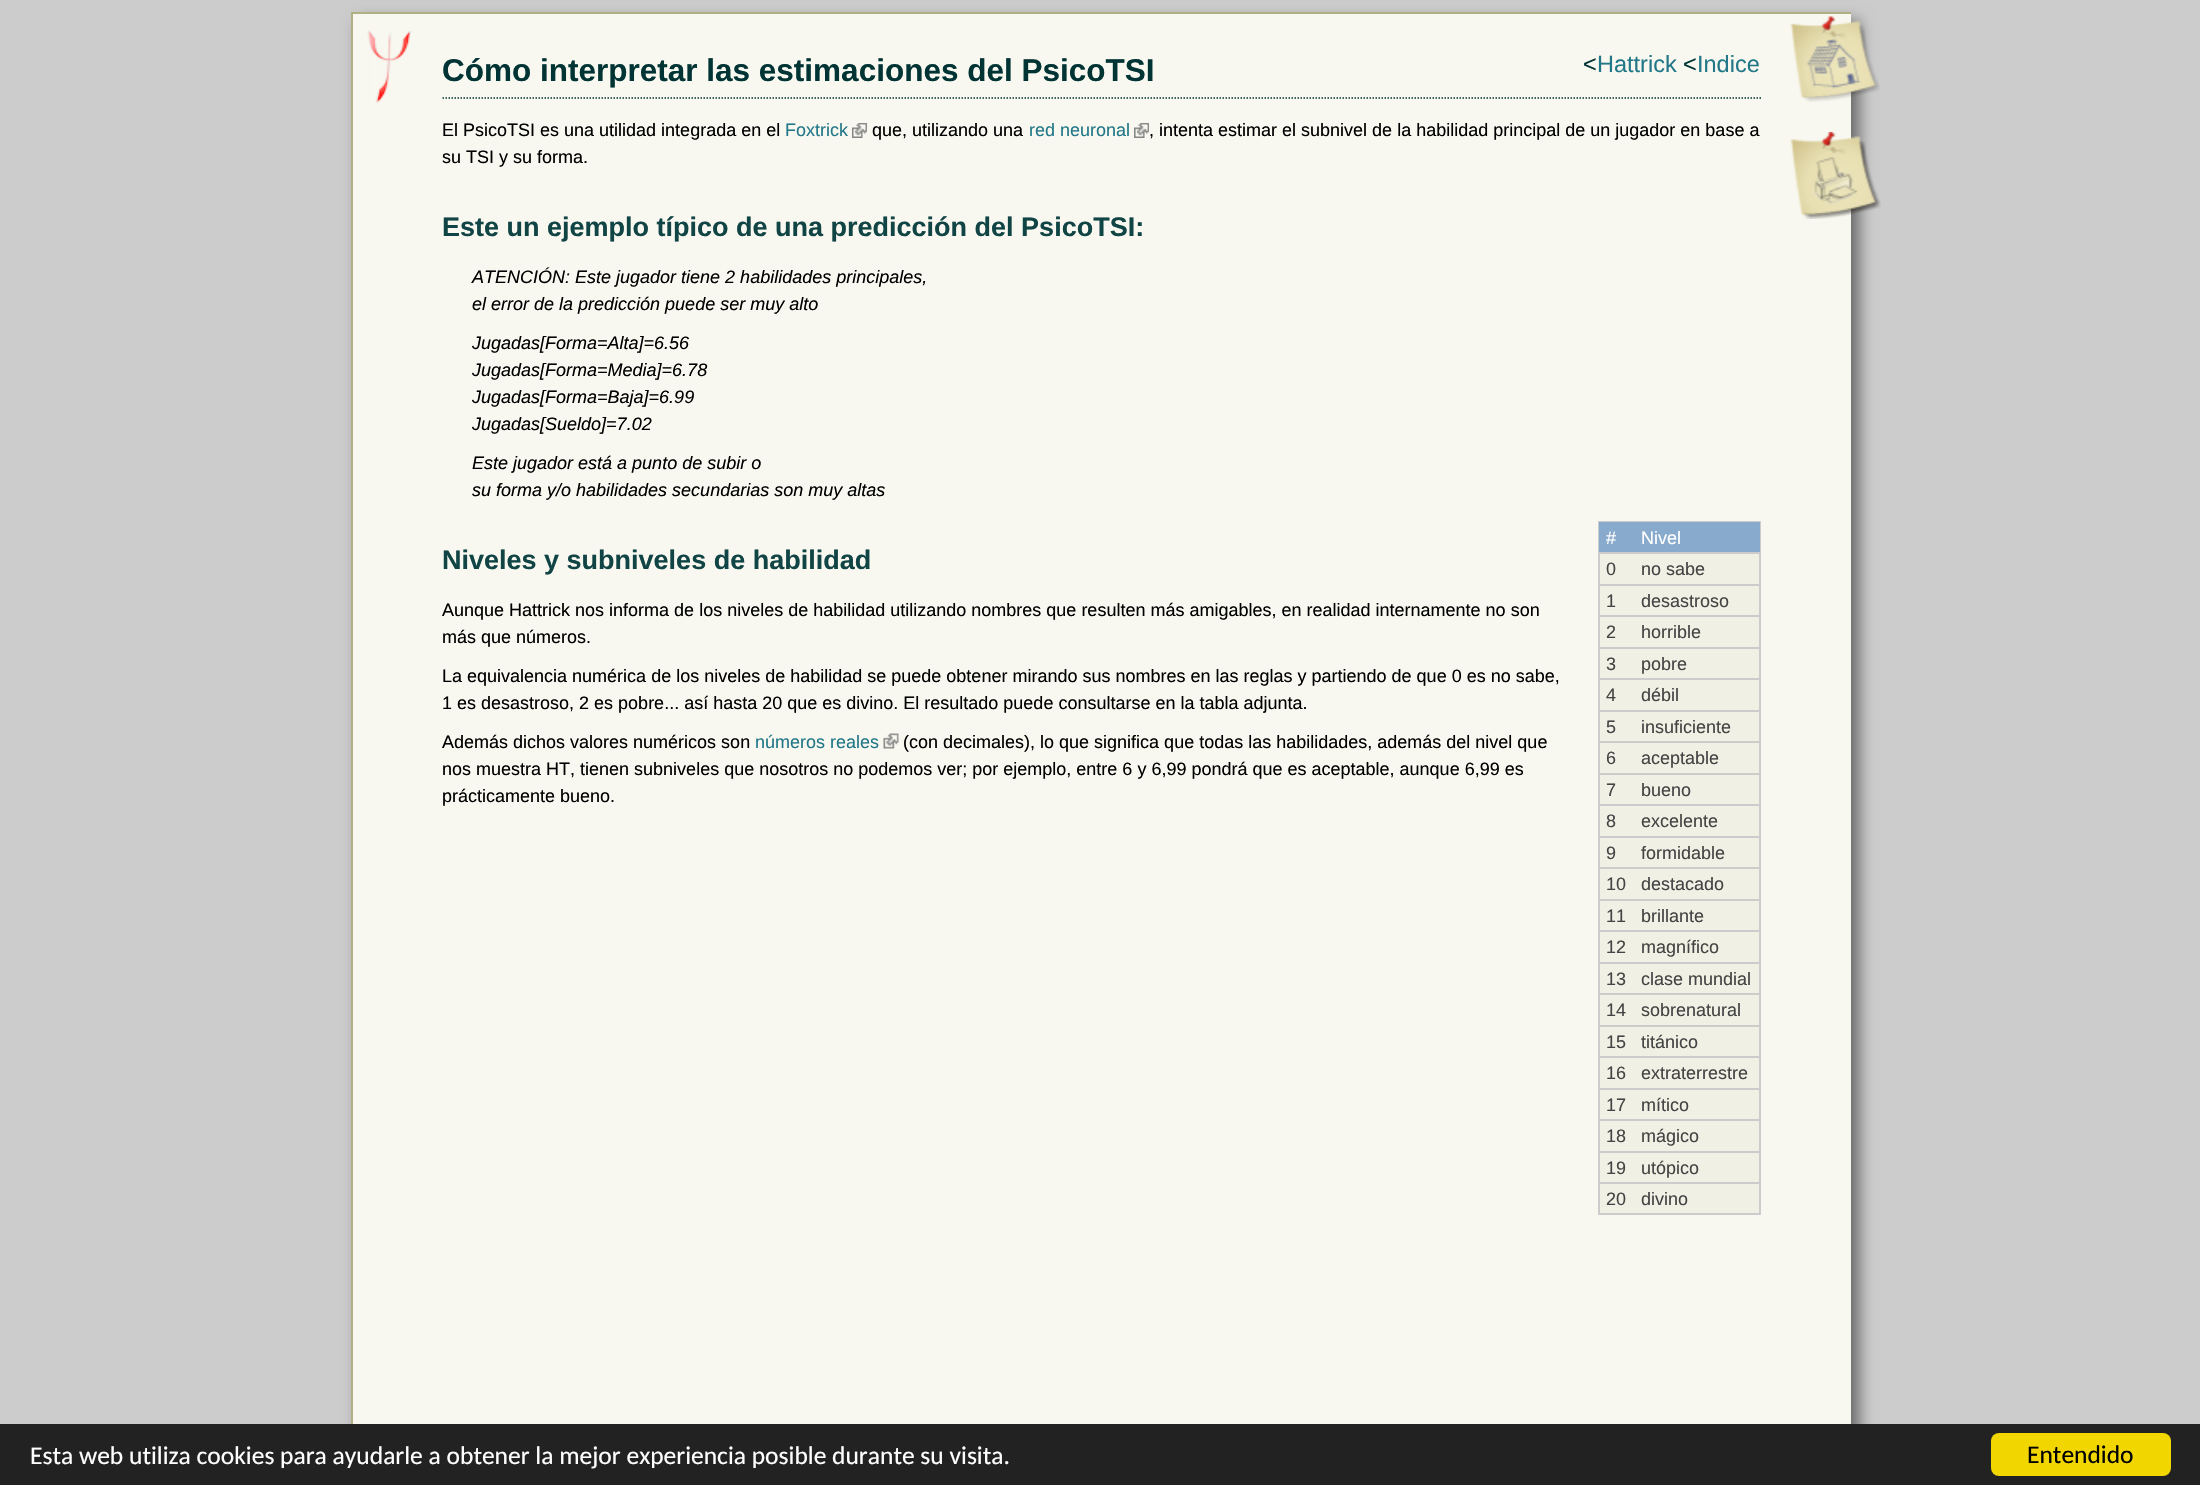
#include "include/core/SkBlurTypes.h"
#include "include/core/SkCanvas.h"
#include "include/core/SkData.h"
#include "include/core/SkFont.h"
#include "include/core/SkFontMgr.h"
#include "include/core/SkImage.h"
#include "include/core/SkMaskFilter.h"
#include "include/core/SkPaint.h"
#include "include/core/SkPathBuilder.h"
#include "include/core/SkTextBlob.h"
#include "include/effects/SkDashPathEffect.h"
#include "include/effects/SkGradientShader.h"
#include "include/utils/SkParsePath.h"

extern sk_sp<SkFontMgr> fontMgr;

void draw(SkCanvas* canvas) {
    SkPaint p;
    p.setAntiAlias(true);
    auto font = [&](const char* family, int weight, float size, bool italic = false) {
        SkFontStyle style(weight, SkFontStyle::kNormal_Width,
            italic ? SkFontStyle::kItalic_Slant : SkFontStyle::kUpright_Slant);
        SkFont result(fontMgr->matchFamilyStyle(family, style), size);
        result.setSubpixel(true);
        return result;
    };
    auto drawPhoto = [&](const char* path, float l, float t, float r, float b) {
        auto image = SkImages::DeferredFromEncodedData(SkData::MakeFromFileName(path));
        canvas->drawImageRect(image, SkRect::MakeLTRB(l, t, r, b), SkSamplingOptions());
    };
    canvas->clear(0xFFCCCCCC);
    p.setColor(0xFF666666);
    p.setMaskFilter(SkMaskFilter::MakeBlur(kNormal_SkBlurStyle, 7.5f));
    canvas->drawRect(SkRect::MakeLTRB(359, 21, 1859, 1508), p);
    p.setMaskFilter(nullptr);
    {
        const struct { float l, t, r, b; SkColor color; } items[] = {
            {353, 14, 1851, 1424, 0xFFF8F8F0},
            {351, 12, 1851, 14, 0xFFB0B080},
            {351, 12, 353, 1424, 0xFFB0B080},
        };
        for (auto [l, t, r, b, color] : items) {
            p.setColor(color);
            canvas->drawRect(SkRect::MakeLTRB(l, t, r, b), p);
        }
    }
    drawPhoto("media/1.png", 367, 30, 411, 104);
    p.setStyle(SkPaint::kStroke_Style);
    p.setStrokeWidth(1.5f);
    p.setColor(0xFF003333);
    p.setPathEffect(SkDashPathEffect::Make({{1.5f, 1.5f}}, 0));
    canvas->drawPath(SkPathBuilder().moveTo(442.5f, 98).lineTo(1761, 98).detach(), p);
    p.setPathEffect(nullptr);
    auto font1 = font("Liberation Sans", 700, 31.5f);
    p.setStyle(SkPaint::kFill_Style);
    canvas->drawString("Cómo interpretar las estimaciones del PsicoTSI", 442, 81, font1, p);
    auto font2 = font("Liberation Sans", 400, 23.5f);
    canvas->drawString("<", 1583, 72, font2, p);
    p.setColor(0xFF227788);
    canvas->drawString("Hattrick", 1597, 72, font2, p);
    p.setColor(0xFF003333);
    canvas->drawString("<", 1683, 72, font2, p);
    p.setColor(0xFF227788);
    canvas->drawString("Indice", 1697, 72, font2, p);
    auto font3 = font("Liberation Sans", 400, 18);
    p.setColor(0xFF000000);
    canvas->drawString("El PsicoTSI es una utilidad integrada en el", 442, 136, font3, p);
    p.setColor(0xFF227788);
    canvas->drawString("Foxtrick", 785, 136, font3, p);
    drawPhoto("media/2.png", 852, 123, 867, 138);
    p.setColor(0xFF000000);
    canvas->drawString("que, utilizando una", 872, 136, font3, p);
    p.setColor(0xFF227788);
    canvas->drawString("red neuronal", 1029, 136, font3, p);
    drawPhoto("media/3.png", 1134, 123, 1149, 138);
    p.setColor(0xFF000000);
    canvas->drawString(", intenta estimar el subnivel de la habilidad principal de un jugador en base a", 1149, 136, font3, p);
    canvas->drawString("su TSI y su forma.", 442, 163, font3, p);
    auto font4 = font("Liberation Sans", 700, 27);
    p.setColor(0xFF114444);
    canvas->drawString("Este un ejemplo típico de una predicción del PsicoTSI:", 442, 236, font4, p);
    auto font5 = font("Liberation Sans", 400, 18, true);
    p.setColor(0xFF000000);
    {
        const struct { const char* s; float x, y; } items[] = {
            {"ATENCIÓN: Este jugador tiene 2 habilidades principales,", 472, 283},
            {"el error de la predicción puede ser muy alto", 472, 310},
            {"Jugadas[Forma=Alta]=6.56", 472, 349},
            {"Jugadas[Forma=Media]=6.78", 472, 376},
            {"Jugadas[Forma=Baja]=6.99", 472, 403},
            {"Jugadas[Sueldo]=7.02", 472, 430},
            {"Este jugador está a punto de subir o", 472, 469},
            {"su forma y/o habilidades secundarias son muy altas", 472, 496},
        };
        for (auto [s, x, y] : items) {
            canvas->drawString(s, x, y, font5, p);
        }
    }
    p.setColor(0xFF114444);
    canvas->drawString("Niveles y subniveles de habilidad", 442, 569, font4, p);
    p.setColor(0xFFF0F0E4);
    canvas->drawRect(SkRect::MakeLTRB(1600, 554, 1759, 1213), p);
    p.setStyle(SkPaint::kStroke_Style);
    p.setStrokeWidth(2);
    p.setColor(0xFFCCCCCC);
    canvas->drawRect(SkRect::MakeLTRB(1599, 522, 1760, 1214), p);
    p.setStyle(SkPaint::kFill_Style);
    p.setColor(0xFF88AACC);
    canvas->drawRect(SkRect::MakeLTRB(1599, 522, 1760, 552), p);
    p.setColor(0xFFFFFFFF);
    canvas->drawString("#", 1606, 544, font3, p);
    canvas->drawString("Nivel", 1641, 544, font3, p);
    p.setColor(0xFFCCCCCC);
    canvas->drawRect(SkRect::MakeLTRB(1599, 552, 1760, 554), p);
    p.setColor(0xFF444444);
    canvas->drawString("0", 1606, 575, font3, p);
    canvas->drawString("no sabe", 1641, 575, font3, p);
    p.setColor(0xFFCCCCCC);
    canvas->drawRect(SkRect::MakeLTRB(1599, 584, 1760, 586), p);
    p.setColor(0xFF444444);
    canvas->drawString("1", 1606, 607, font3, p);
    canvas->drawString("desastroso", 1641, 607, font3, p);
    p.setColor(0xFFCCCCCC);
    canvas->drawRect(SkRect::MakeLTRB(1599, 615, 1760, 617), p);
    p.setColor(0xFF444444);
    canvas->drawString("2", 1606, 638, font3, p);
    canvas->drawString("horrible", 1641, 638, font3, p);
    p.setColor(0xFFCCCCCC);
    canvas->drawRect(SkRect::MakeLTRB(1599, 647, 1760, 649), p);
    p.setColor(0xFF444444);
    canvas->drawString("3", 1606, 670, font3, p);
    canvas->drawString("pobre", 1641, 670, font3, p);
    p.setColor(0xFFCCCCCC);
    canvas->drawRect(SkRect::MakeLTRB(1599, 678, 1760, 680), p);
    p.setColor(0xFF444444);
    canvas->drawString("4", 1606, 701, font3, p);
    canvas->drawString("débil", 1641, 701, font3, p);
    p.setColor(0xFFCCCCCC);
    canvas->drawRect(SkRect::MakeLTRB(1599, 710, 1760, 712), p);
    p.setColor(0xFF444444);
    canvas->drawString("5", 1606, 733, font3, p);
    canvas->drawString("insuficiente", 1641, 733, font3, p);
    p.setColor(0xFFCCCCCC);
    canvas->drawRect(SkRect::MakeLTRB(1599, 741, 1760, 743), p);
    p.setColor(0xFF444444);
    canvas->drawString("6", 1606, 764, font3, p);
    canvas->drawString("aceptable", 1641, 764, font3, p);
    p.setColor(0xFFCCCCCC);
    canvas->drawRect(SkRect::MakeLTRB(1599, 773, 1760, 775), p);
    p.setColor(0xFF444444);
    canvas->drawString("7", 1606, 796, font3, p);
    canvas->drawString("bueno", 1641, 796, font3, p);
    p.setColor(0xFFCCCCCC);
    canvas->drawRect(SkRect::MakeLTRB(1599, 804, 1760, 806), p);
    p.setColor(0xFF444444);
    canvas->drawString("8", 1606, 827, font3, p);
    canvas->drawString("excelente", 1641, 827, font3, p);
    p.setColor(0xFFCCCCCC);
    canvas->drawRect(SkRect::MakeLTRB(1599, 836, 1760, 838), p);
    p.setColor(0xFF444444);
    canvas->drawString("9", 1606, 859, font3, p);
    canvas->drawString("formidable", 1641, 859, font3, p);
    p.setColor(0xFFCCCCCC);
    canvas->drawRect(SkRect::MakeLTRB(1599, 867, 1760, 869), p);
    p.setColor(0xFF444444);
    canvas->drawString("10", 1606, 890, font3, p);
    canvas->drawString("destacado", 1641, 890, font3, p);
    p.setColor(0xFFCCCCCC);
    canvas->drawRect(SkRect::MakeLTRB(1599, 899, 1760, 901), p);
    p.setColor(0xFF444444);
    canvas->drawString("11", 1606, 922, font3, p);
    canvas->drawString("brillante", 1641, 922, font3, p);
    p.setColor(0xFFCCCCCC);
    canvas->drawRect(SkRect::MakeLTRB(1599, 930, 1760, 932), p);
    p.setColor(0xFF444444);
    canvas->drawString("12", 1606, 953, font3, p);
    canvas->drawString("magnífico", 1641, 953, font3, p);
    p.setColor(0xFFCCCCCC);
    canvas->drawRect(SkRect::MakeLTRB(1599, 962, 1760, 964), p);
    p.setColor(0xFF444444);
    canvas->drawString("13", 1606, 985, font3, p);
    canvas->drawString("clase mundial", 1641, 985, font3, p);
    p.setColor(0xFFCCCCCC);
    canvas->drawRect(SkRect::MakeLTRB(1599, 993, 1760, 995), p);
    p.setColor(0xFF444444);
    canvas->drawString("14", 1606, 1016, font3, p);
    canvas->drawString("sobrenatural", 1641, 1016, font3, p);
    p.setColor(0xFFCCCCCC);
    canvas->drawRect(SkRect::MakeLTRB(1599, 1025, 1760, 1027), p);
    p.setColor(0xFF444444);
    canvas->drawString("15", 1606, 1048, font3, p);
    canvas->drawString("titánico", 1641, 1048, font3, p);
    p.setColor(0xFFCCCCCC);
    canvas->drawRect(SkRect::MakeLTRB(1599, 1056, 1760, 1058), p);
    p.setColor(0xFF444444);
    canvas->drawString("16", 1606, 1079, font3, p);
    canvas->drawString("extraterrestre", 1641, 1079, font3, p);
    p.setColor(0xFFCCCCCC);
    canvas->drawRect(SkRect::MakeLTRB(1599, 1088, 1760, 1090), p);
    p.setColor(0xFF444444);
    canvas->drawString("17", 1606, 1111, font3, p);
    canvas->drawString("mítico", 1641, 1111, font3, p);
    p.setColor(0xFFCCCCCC);
    canvas->drawRect(SkRect::MakeLTRB(1599, 1119, 1760, 1121), p);
    p.setColor(0xFF444444);
    canvas->drawString("18", 1606, 1142, font3, p);
    canvas->drawString("mágico", 1641, 1142, font3, p);
    p.setColor(0xFFCCCCCC);
    canvas->drawRect(SkRect::MakeLTRB(1599, 1151, 1760, 1153), p);
    p.setColor(0xFF444444);
    canvas->drawString("19", 1606, 1174, font3, p);
    canvas->drawString("utópico", 1641, 1174, font3, p);
    p.setColor(0xFFCCCCCC);
    canvas->drawRect(SkRect::MakeLTRB(1599, 1182, 1760, 1184), p);
    p.setColor(0xFF444444);
    canvas->drawString("20", 1606, 1205, font3, p);
    canvas->drawString("divino", 1641, 1205, font3, p);
    p.setColor(0xFF000000);
    {
        const struct { const char* s; float x, y; } items[] = {
            {"Aunque Hattrick nos informa de los niveles de habilidad utilizando nombres que resulten más amigables, en realidad internamente no son", 442, 616},
            {"más que números.", 442, 643},
            {"La equivalencia numérica de los niveles de habilidad se puede obtener mirando sus nombres en las reglas y partiendo de que 0 es no sabe,", 442, 682},
            {"1 es desastroso, 2 es pobre... así hasta 20 que es divino. El resultado puede consultarse en la tabla adjunta.", 442, 709},
            {"Además dichos valores numéricos son", 442, 748},
        };
        for (auto [s, x, y] : items) {
            canvas->drawString(s, x, y, font3, p);
        }
    }
    p.setColor(0xFF227788);
    canvas->drawString("números reales", 755, 748, font3, p);
    drawPhoto("media/4.png", 883, 733, 899, 749);
    p.setColor(0xFF000000);
    {
        const struct { const char* s; float x, y; } items[] = {
            {"(con decimales), lo que significa que todas las habilidades, además del nivel que", 903, 748},
            {"nos muestra HT, tienen subniveles que nosotros no podemos ver; por ejemplo, entre 6 y 6,99 pondrá que es aceptable, aunque 6,99 es", 442, 775},
            {"prácticamente bueno.", 442, 802},
        };
        for (auto [s, x, y] : items) {
            canvas->drawString(s, x, y, font3, p);
        }
    }
    drawPhoto("media/5.png", 1790, 16, 1880, 102);
    drawPhoto("media/6.png", 1790, 132, 1881, 219);
    p.setColor(0xFF222222);
    canvas->drawRect(SkRect::MakeLTRB(0, 1424, 2200, 1485), p);
    auto font6 = font("Carlito", 400, 25.5f);
    p.setColor(0xFFFFFFFF);
    canvas->drawString("Esta web utiliza cookies para ayudarle a obtener la mejor experiencia posible durante su visita.", 30, 1464, font6, p);
    p.setColor(0xFFF1D600);
    canvas->drawRoundRect(SkRect::MakeLTRB(1991, 1433, 2171, 1476), 8, 8, p);
    p.setColor(0xFF000000);
    canvas->drawString("Entendido", 2027, 1463, font6, p);
}
